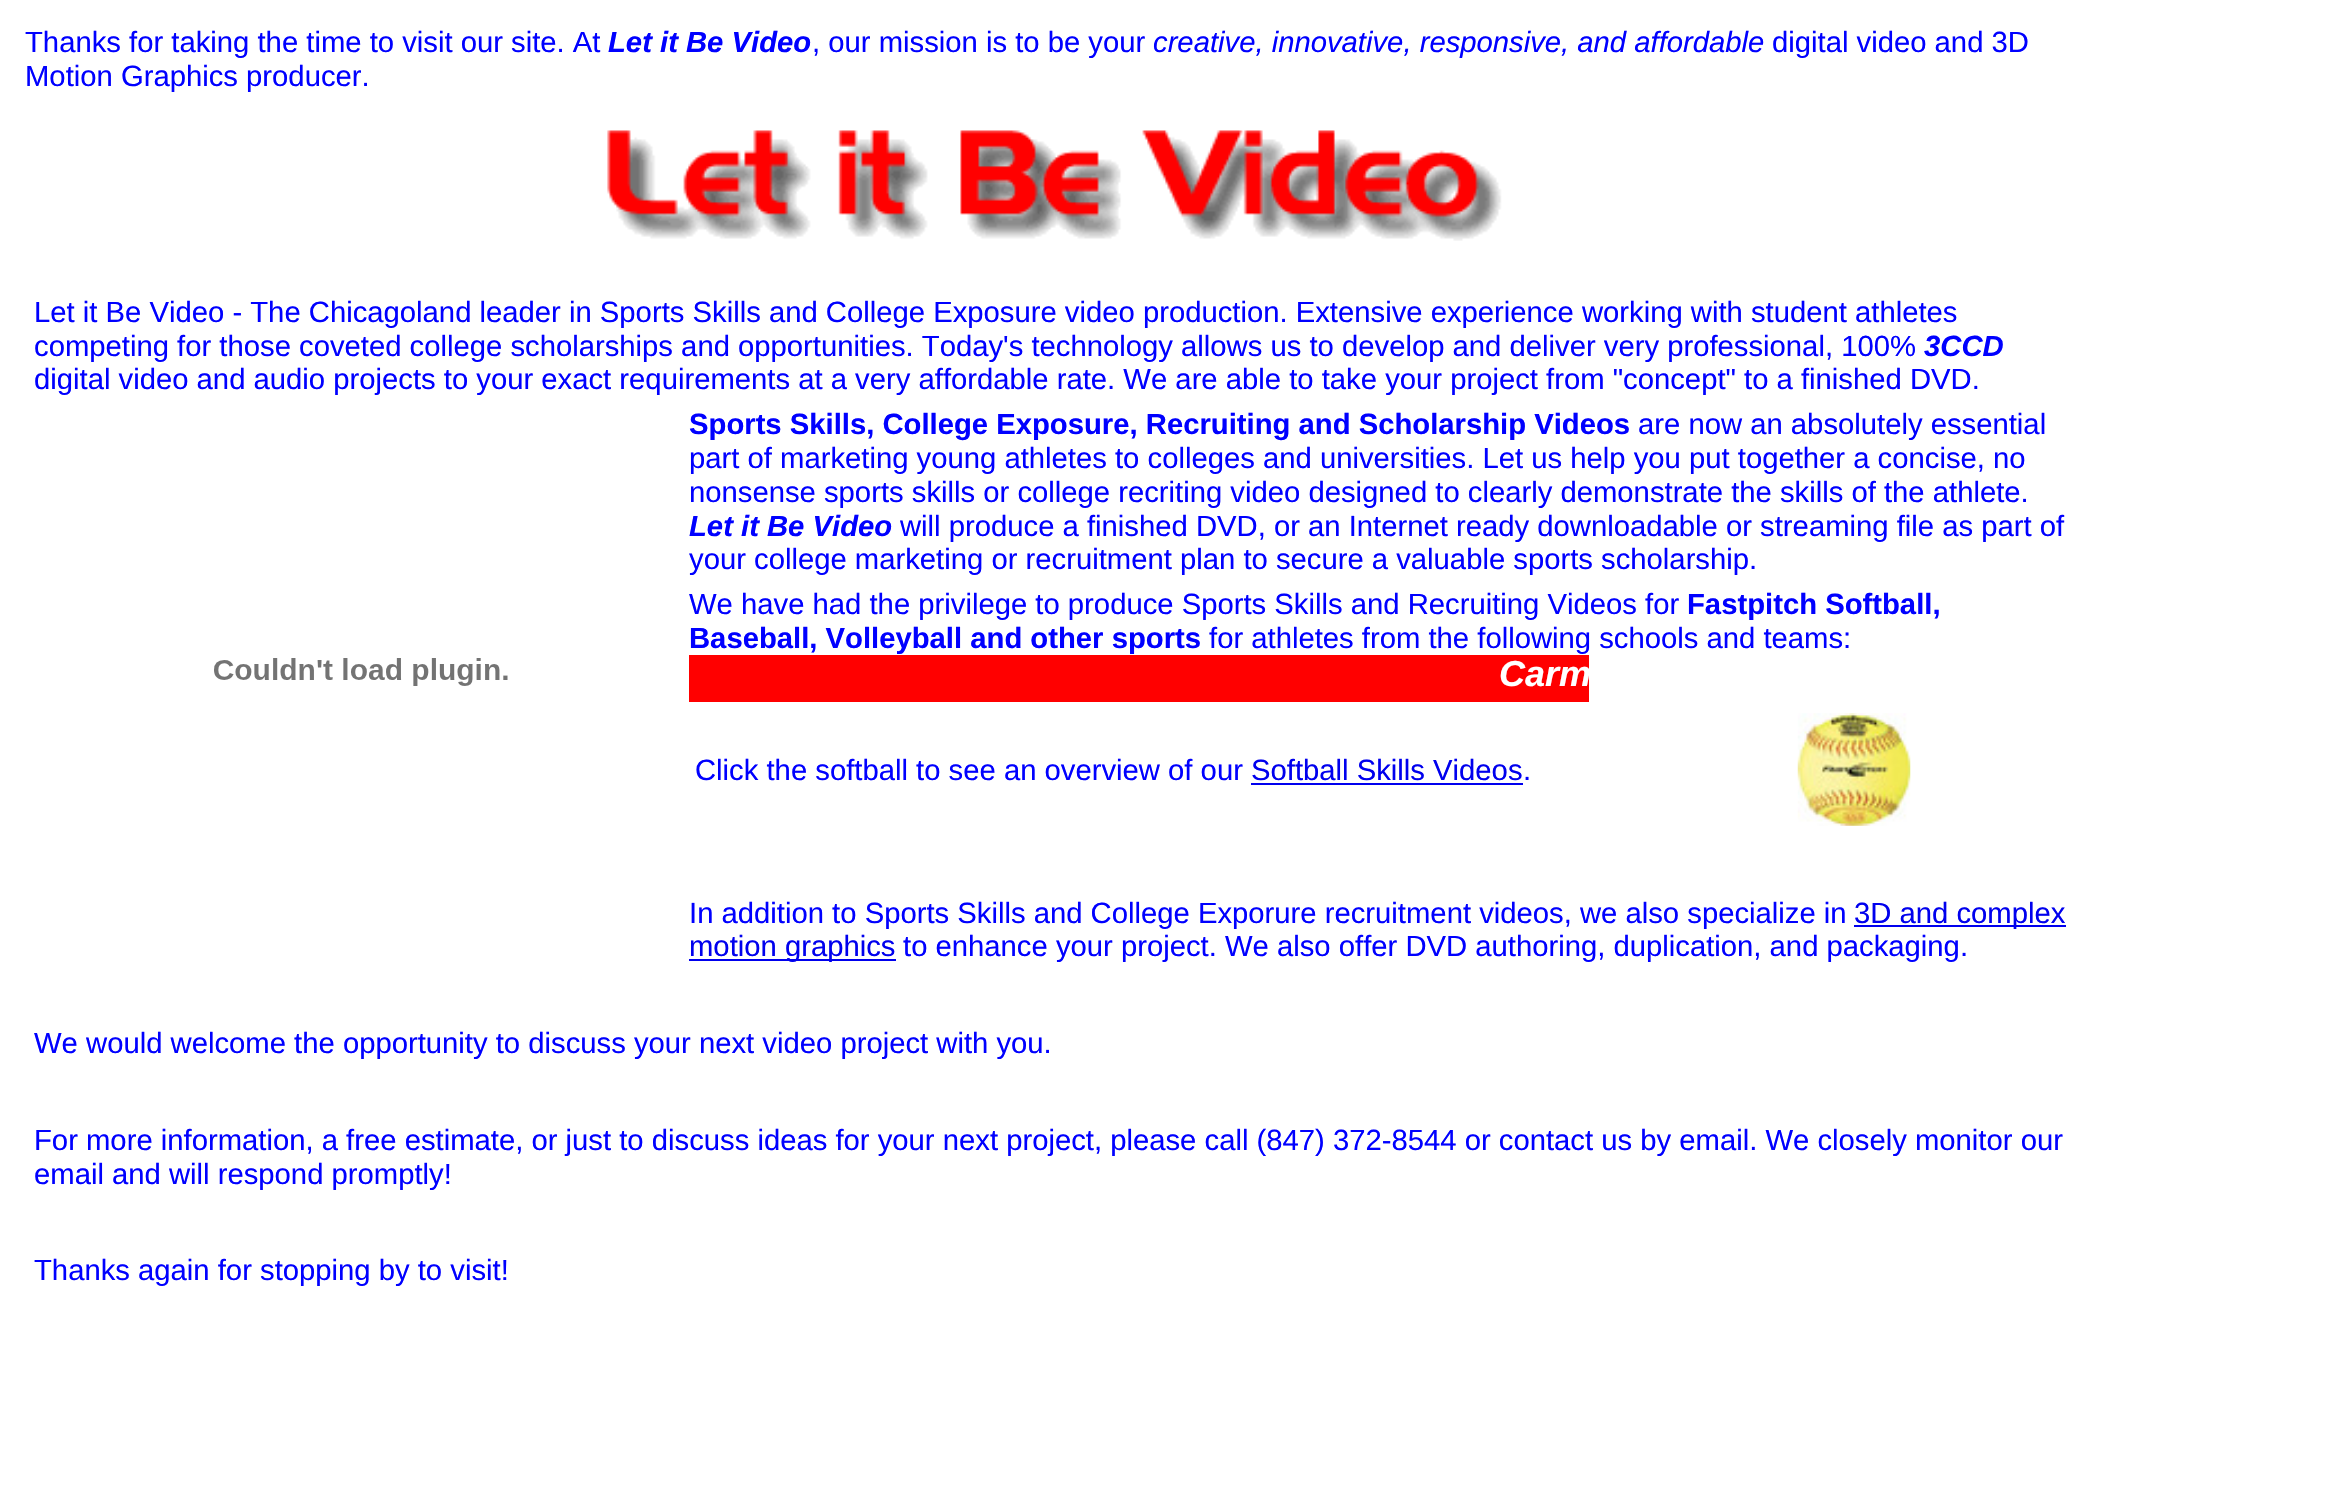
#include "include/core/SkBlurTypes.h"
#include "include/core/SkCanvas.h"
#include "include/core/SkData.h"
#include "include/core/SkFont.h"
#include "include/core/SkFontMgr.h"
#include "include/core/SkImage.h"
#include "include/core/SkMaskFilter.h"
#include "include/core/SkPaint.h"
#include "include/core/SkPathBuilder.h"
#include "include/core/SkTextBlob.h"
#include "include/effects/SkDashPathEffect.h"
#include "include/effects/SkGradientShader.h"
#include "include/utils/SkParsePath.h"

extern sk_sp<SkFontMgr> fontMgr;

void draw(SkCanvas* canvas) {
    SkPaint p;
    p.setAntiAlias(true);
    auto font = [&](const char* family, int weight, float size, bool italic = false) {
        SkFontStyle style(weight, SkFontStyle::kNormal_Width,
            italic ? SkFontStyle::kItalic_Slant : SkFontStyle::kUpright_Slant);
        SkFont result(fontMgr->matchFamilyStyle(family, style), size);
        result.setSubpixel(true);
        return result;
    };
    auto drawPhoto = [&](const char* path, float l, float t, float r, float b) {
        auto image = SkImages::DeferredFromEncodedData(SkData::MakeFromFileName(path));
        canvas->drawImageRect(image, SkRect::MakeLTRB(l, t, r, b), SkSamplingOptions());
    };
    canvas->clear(0xFFFFFFFF);
    auto font1 = font("Liberation Sans", 400, 29.25f);
    p.setColor(0xFF0000FF);
    canvas->drawString("Thanks for taking the time to visit our site. At", 25, 52, font1, p);
    auto font2 = font("Liberation Sans", 700, 29.25f, true);
    canvas->drawString("Let it Be Video", 608, 52, font2, p);
    canvas->drawString(", our mission is to be your", 812, 52, font1, p);
    auto font3 = font("Liberation Sans", 400, 29.25f, true);
    canvas->drawString("creative, innovative, responsive, and affordable", 1153, 52, font3, p);
    canvas->drawString("digital video and 3D", 1772, 52, font1, p);
    canvas->drawString("Motion Graphics producer.", 25, 86, font1, p);
    drawPhoto("media/1.png", 607, 130, 1502, 241);
    canvas->drawString("Let it Be Video - The Chicagoland leader in Sports Skills and College Exposure video production. Extensive experience working with student athletes", 34, 322, font1, p);
    canvas->drawString("competing for those coveted college scholarships and opportunities. Today's technology allows us to develop and deliver very professional, 100%", 34, 356, font1, p);
    canvas->drawString("3CCD", 1924, 356, font2, p);
    canvas->drawString("digital video and audio projects to your exact requirements at a very affordable rate. We are able to take your project from \"concept\" to a finished DVD.", 34, 389, font1, p);
    auto font4 = font("Liberation Sans", 700, 29.25f);
    canvas->drawString("Sports Skills, College Exposure, Recruiting and Scholarship Videos", 689, 434, font4, p);
    {
        const struct { const char* s; float x, y; } items[] = {
            {"are now an absolutely essential", 1638, 434},
            {"part of marketing young athletes to colleges and universities. Let us help you put together a concise, no", 689, 468},
            {"nonsense sports skills or college recriting video designed to clearly demonstrate the skills of the athlete.", 689, 502},
        };
        for (auto [s, x, y] : items) {
            canvas->drawString(s, x, y, font1, p);
        }
    }
    canvas->drawString("Let it Be Video", 689, 536, font2, p);
    canvas->drawString("will produce a finished DVD, or an Internet ready downloadable or streaming file as part of", 900, 536, font1, p);
    canvas->drawString("your college marketing or recruitment plan to secure a valuable sports scholarship.", 689, 569, font1, p);
    drawPhoto("media/2.png", 214, 658, 508, 686);
    canvas->drawString("We have had the privilege to produce Sports Skills and Recruiting Videos for", 689, 614, font1, p);
    canvas->drawString("Fastpitch Softball,", 1687, 614, font4, p);
    canvas->drawString("Baseball, Volleyball and other sports", 689, 648, font4, p);
    canvas->drawString("for athletes from the following schools and teams:", 1209, 648, font1, p);
    p.setColor(0xFFFF0000);
    canvas->drawRect(SkRect::MakeLTRB(689, 655, 1589, 702), p);
    auto font5 = font("Liberation Sans", 700, 36, true);
    p.setColor(0xFFFFFFFF);
    canvas->drawString("Carm", 1499, 686, font5, p);
    p.setColor(0xFF0000FF);
    canvas->drawString("Click the softball to see an overview of our", 695, 780, font1, p);
    p.setColor(0xFF0000EE);
    canvas->drawString("Softball Skills Videos", 1251, 780, font1, p);
    p.setColor(0xFF0000FF);
    canvas->drawString(".", 1523, 780, font1, p);
    p.setColor(0xFF0000EE);
    canvas->drawRect(SkRect::MakeLTRB(1251, 783, 1523, 785), p);
    drawPhoto("media/3.png", 1797, 713, 1911, 826);
    p.setColor(0xFF0000FF);
    canvas->drawString("In addition to Sports Skills and College Exporure recruitment videos, we also specialize in", 689, 923, font1, p);
    p.setColor(0xFF0000EE);
    canvas->drawRect(SkRect::MakeLTRB(1854, 925, 2066, 927), p);
    canvas->drawString("3D and complex", 1854, 923, font1, p);
    canvas->drawRect(SkRect::MakeLTRB(689, 959, 896, 961), p);
    canvas->drawString("motion graphics", 689, 956, font1, p);
    p.setColor(0xFF0000FF);
    {
        const struct { const char* s; float x, y; } items[] = {
            {"to enhance your project. We also offer DVD authoring, duplication, and packaging.", 903, 956},
            {"We would welcome the opportunity to discuss your next video project with you.", 34, 1053},
            {"For more information, a free estimate, or just to discuss ideas for your next project, please call (847) 372-8544 or contact us by email. We closely monitor our", 34, 1150},
            {"email and will respond promptly!", 34, 1184},
            {"Thanks again for stopping by to visit!", 34, 1280},
        };
        for (auto [s, x, y] : items) {
            canvas->drawString(s, x, y, font1, p);
        }
    }
}
